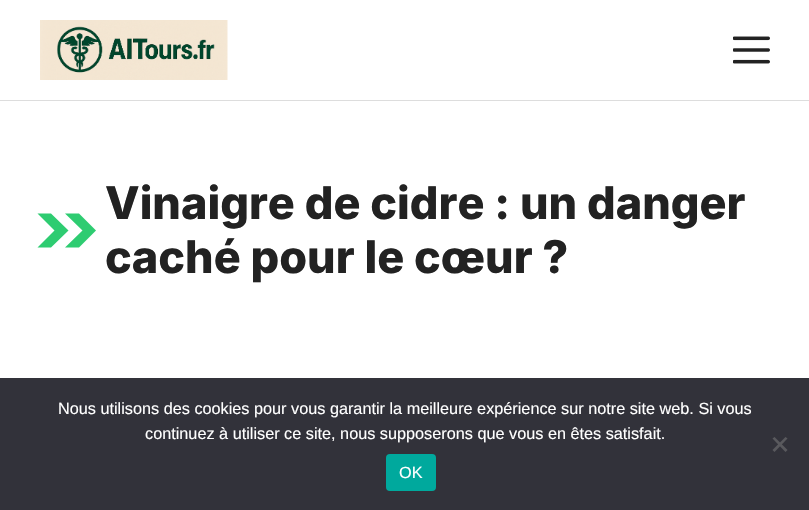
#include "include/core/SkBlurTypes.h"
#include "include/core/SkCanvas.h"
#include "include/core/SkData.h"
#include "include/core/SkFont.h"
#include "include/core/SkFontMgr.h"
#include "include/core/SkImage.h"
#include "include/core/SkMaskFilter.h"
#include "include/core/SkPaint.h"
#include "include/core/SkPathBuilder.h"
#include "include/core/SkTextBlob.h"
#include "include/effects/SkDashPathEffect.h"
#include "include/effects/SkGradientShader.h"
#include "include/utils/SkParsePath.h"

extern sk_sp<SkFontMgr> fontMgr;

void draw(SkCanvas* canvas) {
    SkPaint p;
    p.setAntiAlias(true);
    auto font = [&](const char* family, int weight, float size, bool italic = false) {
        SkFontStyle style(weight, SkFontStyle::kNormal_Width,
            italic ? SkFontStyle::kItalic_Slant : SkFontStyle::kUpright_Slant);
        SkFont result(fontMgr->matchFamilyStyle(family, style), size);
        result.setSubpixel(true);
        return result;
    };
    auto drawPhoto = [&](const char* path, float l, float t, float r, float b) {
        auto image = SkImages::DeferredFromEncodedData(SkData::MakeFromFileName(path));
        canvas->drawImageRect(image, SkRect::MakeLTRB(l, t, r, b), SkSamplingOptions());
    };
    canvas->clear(0xFFFFFFFF);
    p.setColor(0xFFDDDDDD);
    canvas->drawRect(SkRect::MakeLTRB(0, 100, 809, 101), p);
    drawPhoto("media/1.png", 40, 20, 228, 80);
    drawPhoto("media/2.png", 733, 36, 770, 64);
    p.setColor(0xFF2ECC71);
    canvas->drawPath(SkPathBuilder().moveTo(82.5f, 230.5f).lineTo(65, 247.5f).lineTo(79, 247.5f).lineTo(96, 230.5f).lineTo(79, 213.5f).lineTo(65, 213.5f).close().detach(), p);
    canvas->drawPath(SkPathBuilder().moveTo(54.5f, 230.5f).lineTo(37.5f, 247.5f).lineTo(51, 247.5f).lineTo(68.5f, 230.5f).lineTo(51, 213.5f).lineTo(37.5f, 213.5f).close().detach(), p);
    auto font1 = font("Inter", 800, 45);
    p.setColor(0xFF222222);
    canvas->drawString("Vinaigre de cidre : un danger", 105, 219, font1, p);
    canvas->drawString("caché pour le cœur ?", 105, 273, font1, p);
    p.setColor(0xFF32323A);
    canvas->drawRect(SkRect::MakeLTRB(0, 378, 809, 510), p);
    auto font2 = font("Liberation Sans", 400, 16.25f);
    p.setColor(0xFFFFFFFF);
    canvas->drawString("Nous utilisons des cookies pour vous garantir la meilleure expérience sur notre site web. Si vous", 58, 414, font2, p);
    canvas->drawString("continuez à utiliser ce site, nous supposerons que vous en êtes satisfait.", 145, 439, font2, p);
    p.setColor(0xFF59595D);
    canvas->drawPath(SkPathBuilder().moveTo(785.5f, 437).lineTo(787.5f, 438.5f).lineTo(774.5f, 452).lineTo(772.5f, 450).close().detach(), p);
    canvas->drawPath(SkPathBuilder().moveTo(772.5f, 438.5f).lineTo(774.5f, 437).lineTo(787.5f, 450).lineTo(785.5f, 452).close().detach(), p);
    p.setColor(0xFF00A99D);
    canvas->drawRoundRect(SkRect::MakeLTRB(386, 454, 436, 491), 4, 4, p);
    p.setColor(0xFFFFFFFF);
    canvas->drawString("OK", 399, 478, font2, p);
}
